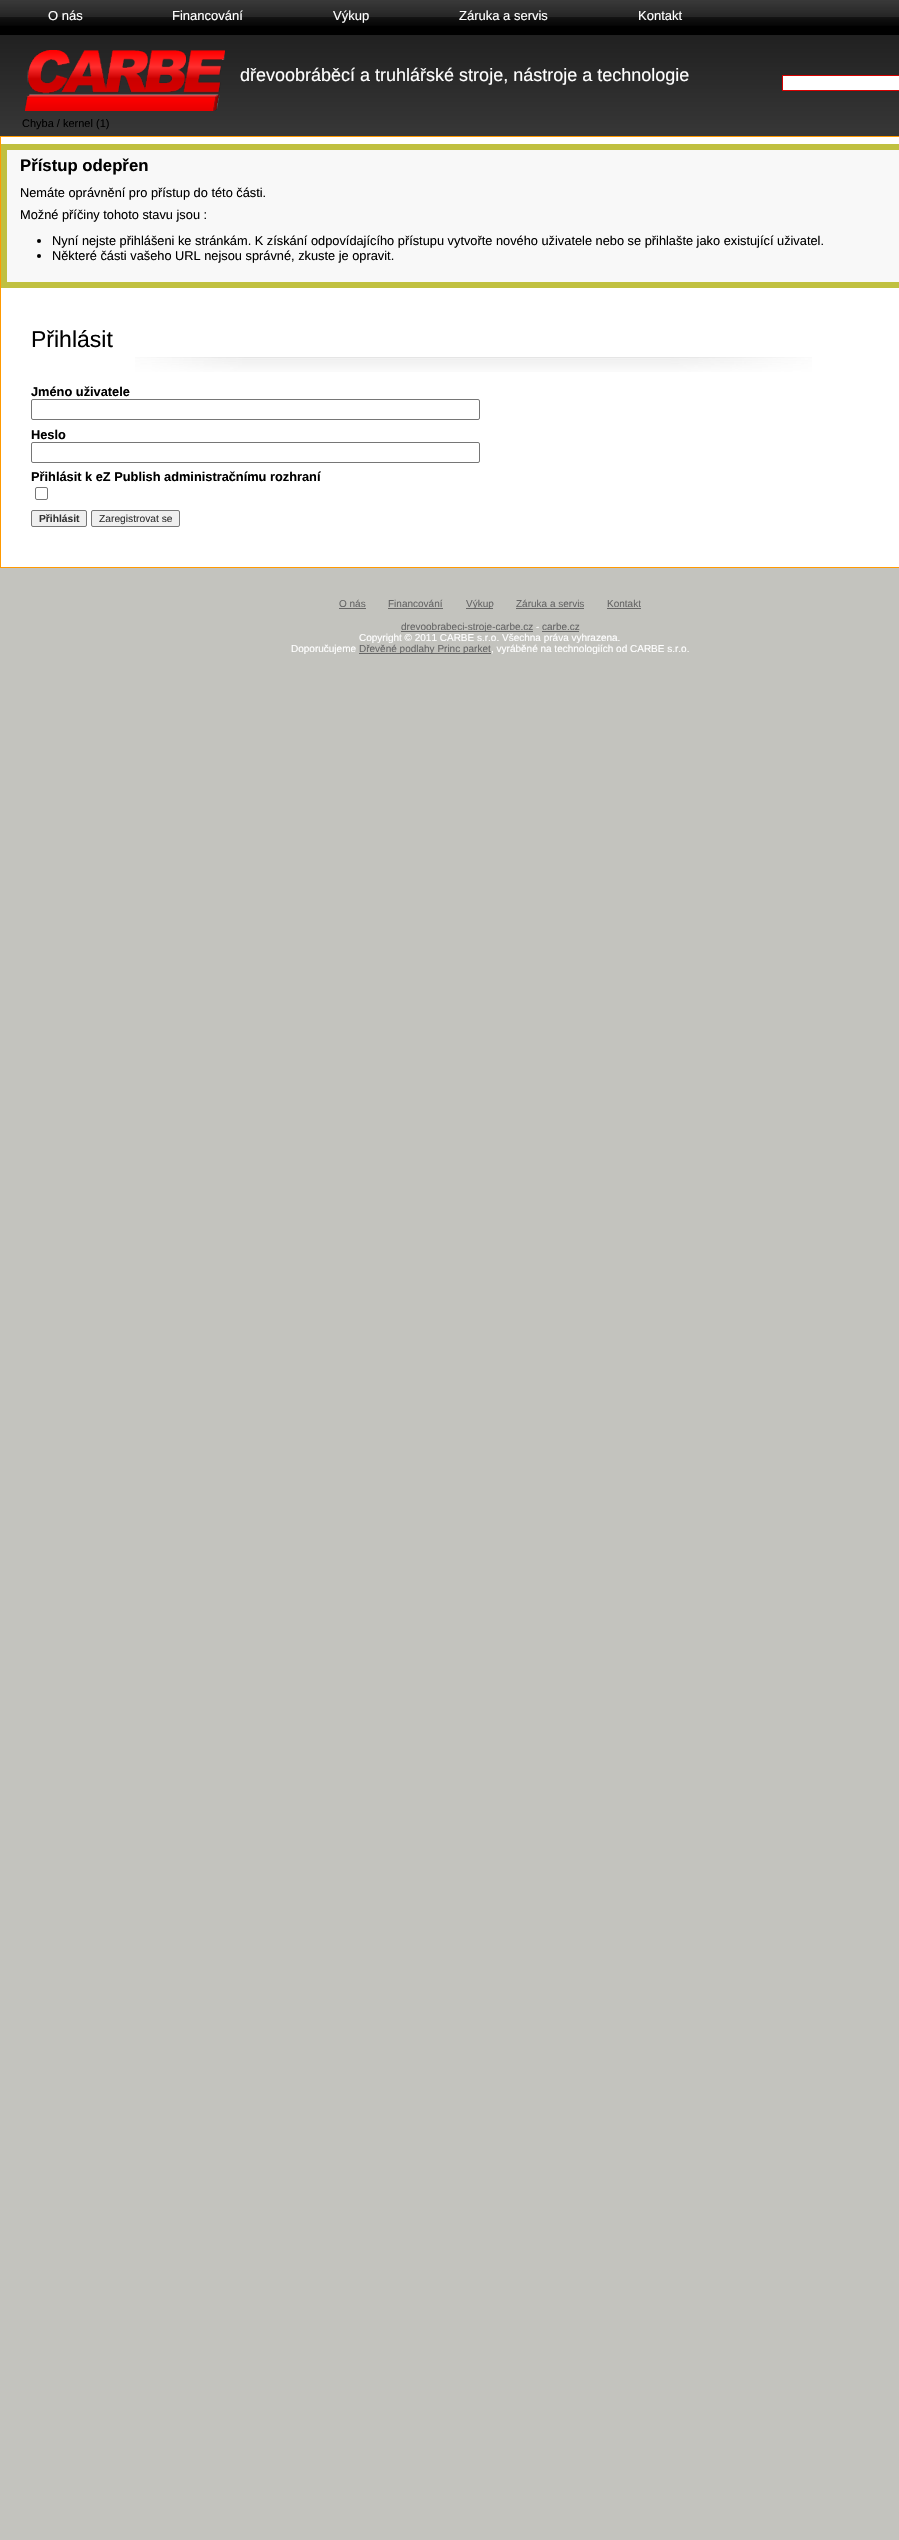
#include "include/core/SkBlurTypes.h"
#include "include/core/SkCanvas.h"
#include "include/core/SkData.h"
#include "include/core/SkFont.h"
#include "include/core/SkFontMgr.h"
#include "include/core/SkImage.h"
#include "include/core/SkMaskFilter.h"
#include "include/core/SkPaint.h"
#include "include/core/SkPathBuilder.h"
#include "include/core/SkTextBlob.h"
#include "include/effects/SkDashPathEffect.h"
#include "include/effects/SkGradientShader.h"
#include "include/utils/SkParsePath.h"

extern sk_sp<SkFontMgr> fontMgr;

void draw(SkCanvas* canvas) {
    SkPaint p;
    p.setAntiAlias(true);
    auto font = [&](const char* family, int weight, float size, bool italic = false) {
        SkFontStyle style(weight, SkFontStyle::kNormal_Width,
            italic ? SkFontStyle::kItalic_Slant : SkFontStyle::kUpright_Slant);
        SkFont result(fontMgr->matchFamilyStyle(family, style), size);
        result.setSubpixel(true);
        return result;
    };
    auto drawPhoto = [&](const char* path, float l, float t, float r, float b) {
        auto image = SkImages::DeferredFromEncodedData(SkData::MakeFromFileName(path));
        canvas->drawImageRect(image, SkRect::MakeLTRB(l, t, r, b), SkSamplingOptions());
    };
    canvas->clear(0xFFC3C3BE);
    drawPhoto("media/1.png", 0, 35, 899, 136);
    p.setColor(0xFF000000);
    canvas->drawRect(SkRect::MakeLTRB(0, 26, 899, 35), p);
    drawPhoto("media/2.png", 0, 0, 899, 26);
    auto font1 = font("Liberation Sans", 400, 13);
    p.setColor(0xFFFFFFFF);
    {
        const struct { const char* s; float x, y; } items[] = {
            {"O nás", 48, 20},
            {"Financování", 172, 20},
            {"Výkup", 333, 20},
            {"Záruka a servis", 459, 20},
            {"Kontakt", 638, 20},
        };
        for (auto [s, x, y] : items) {
            canvas->drawString(s, x, y, font1, p);
        }
    }
    drawPhoto("media/3.png", 25, 50, 225, 111);
    auto font2 = font("Liberation Sans", 400, 18);
    canvas->drawString("dřevoobráběcí a truhlářské stroje, nástroje a technologie", 240, 81, font2, p);
    canvas->drawRect(SkRect::MakeLTRB(782.5f, 75.5f, 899.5f, 90.5f), p);
    p.setStyle(SkPaint::kStroke_Style);
    p.setStrokeWidth(1);
    p.setColor(0xFFD70000);
    canvas->drawRect(SkRect::MakeLTRB(782.5f, 75.5f, 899.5f, 90.5f), p);
    auto font3 = font("Liberation Sans", 400, 11);
    p.setStyle(SkPaint::kFill_Style);
    p.setColor(0xFF000000);
    canvas->drawString("Chyba / kernel (1)", 22, 127, font3, p);
    p.setColor(0xFFFFFFFF);
    canvas->drawRect(SkRect::MakeLTRB(0.5f, 136.5f, 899.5f, 567.5f), p);
    p.setStyle(SkPaint::kStroke_Style);
    p.setColor(0xFFFF9900);
    canvas->drawRect(SkRect::MakeLTRB(0.5f, 136.5f, 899.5f, 567.5f), p);
    p.setStyle(SkPaint::kFill_Style);
    p.setColor(0xFFF8F8F8);
    canvas->drawRect(SkRect::MakeLTRB(4, 147, 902, 285), p);
    p.setStyle(SkPaint::kStroke_Style);
    p.setStrokeWidth(6);
    p.setColor(0xFFC0C040);
    canvas->drawRect(SkRect::MakeLTRB(4, 147, 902, 285), p);
    auto font4 = font("Liberation Sans", 700, 16.75f);
    p.setStyle(SkPaint::kFill_Style);
    p.setColor(0xFF000000);
    canvas->drawString("Přístup odepřen", 20, 171, font4, p);
    auto font5 = font("Liberation Sans", 400, 12.8f);
    canvas->drawString("Nemáte oprávnění pro přístup do této části.", 20, 197, font5, p);
    canvas->drawString("Možné příčiny tohoto stavu jsou :", 20, 219, font5, p);
    canvas->drawCircle(39, 241, 2, p);
    canvas->drawString("Nyní nejste přihlášeni ke stránkám. K získání odpovídajícího přístupu vytvořte nového uživatele nebo se přihlašte jako existující uživatel.", 52, 245, font5, p);
    canvas->drawCircle(39, 256, 2, p);
    canvas->drawString("Některé části vašeho URL nejsou správné, zkuste je opravit.", 52, 260, font5, p);
    drawPhoto("media/4.png", 135, 357, 812, 372);
    auto font6 = font("Liberation Sans", 400, 23);
    canvas->drawString("Přihlásit", 31, 347, font6, p);
    auto font7 = font("Liberation Sans", 700, 12.8f);
    canvas->drawString("Jméno uživatele", 31, 396, font7, p);
    p.setStyle(SkPaint::kStroke_Style);
    p.setStrokeWidth(1);
    p.setColor(0xFF767676);
    canvas->drawRoundRect(SkRect::MakeLTRB(31.5f, 399.5f, 479.5f, 419.5f), 1.5f, 1.5f, p);
    p.setStyle(SkPaint::kFill_Style);
    p.setColor(0xFF000000);
    canvas->drawString("Heslo", 31, 439, font7, p);
    p.setStyle(SkPaint::kStroke_Style);
    p.setColor(0xFF767676);
    canvas->drawRoundRect(SkRect::MakeLTRB(31.5f, 442.5f, 479.5f, 462.5f), 1.5f, 1.5f, p);
    p.setStyle(SkPaint::kFill_Style);
    p.setColor(0xFF000000);
    canvas->drawString("Přihlásit k eZ Publish administračnímu rozhraní", 31, 481, font7, p);
    p.setStyle(SkPaint::kStroke_Style);
    p.setColor(0xFF767676);
    canvas->drawRoundRect(SkRect::MakeLTRB(35.5f, 487.5f, 47.5f, 499.5f), 1.5f, 1.5f, p);
    p.setStyle(SkPaint::kFill_Style);
    p.setColor(0xFFEFEFEF);
    canvas->drawRoundRect(SkRect::MakeLTRB(31.5f, 510.5f, 86.5f, 526.5f), 1.5f, 1.5f, p);
    p.setStyle(SkPaint::kStroke_Style);
    p.setColor(0xFF767676);
    canvas->drawRoundRect(SkRect::MakeLTRB(31.5f, 510.5f, 86.5f, 526.5f), 1.5f, 1.5f, p);
    auto font8 = font("Liberation Sans", 700, 10.25f);
    p.setStyle(SkPaint::kFill_Style);
    p.setColor(0xFF343434);
    canvas->drawString("Přihlásit", 39, 522, font8, p);
    p.setColor(0xFFEFEFEF);
    canvas->drawRoundRect(SkRect::MakeLTRB(91.5f, 510.5f, 179.5f, 526.5f), 1.5f, 1.5f, p);
    p.setStyle(SkPaint::kStroke_Style);
    p.setColor(0xFF767676);
    canvas->drawRoundRect(SkRect::MakeLTRB(91.5f, 510.5f, 179.5f, 526.5f), 1.5f, 1.5f, p);
    auto font9 = font("Liberation Sans", 400, 10.25f);
    p.setStyle(SkPaint::kFill_Style);
    p.setColor(0xFF343434);
    canvas->drawString("Zaregistrovat se", 99, 522, font9, p);
    auto font10 = font("Liberation Sans", 400, 10);
    p.setColor(0xFF666666);
    canvas->drawString("O nás", 339, 607, font10, p);
    canvas->drawRect(SkRect::MakeLTRB(339, 608, 366, 609), p);
    canvas->drawString("Financování", 388, 607, font10, p);
    canvas->drawRect(SkRect::MakeLTRB(388, 608, 443, 609), p);
    canvas->drawRect(SkRect::MakeLTRB(466, 608, 493, 609), p);
    canvas->drawString("Výkup", 466, 607, font10, p);
    canvas->drawString("Záruka a servis", 516, 607, font10, p);
    canvas->drawRect(SkRect::MakeLTRB(516, 608, 584, 609), p);
    canvas->drawString("Kontakt", 607, 607, font10, p);
    canvas->drawRect(SkRect::MakeLTRB(607, 608, 641, 609), p);
    canvas->drawRect(SkRect::MakeLTRB(401, 631, 533, 632), p);
    canvas->drawString("drevoobrabeci-stroje-carbe.cz", 401, 630, font10, p);
    p.setColor(0xFFFFFFFF);
    canvas->drawString("-", 536, 630, font10, p);
    p.setColor(0xFF666666);
    canvas->drawString("carbe.cz", 542, 630, font10, p);
    canvas->drawRect(SkRect::MakeLTRB(542, 631, 579, 632), p);
    p.setColor(0xFFFFFFFF);
    canvas->drawString("Copyright © 2011 CARBE s.r.o. Všechna práva vyhrazena.", 359, 641, font10, p);
    canvas->drawString("Doporučujeme", 291, 652, font10, p);
    p.setColor(0xFF666666);
    canvas->drawRect(SkRect::MakeLTRB(359, 653, 491, 654), p);
    canvas->drawString("Dřevěné podlahy Princ parket", 359, 652, font10, p);
    p.setColor(0xFFFFFFFF);
    canvas->drawString(", vyráběné na technologiích od CARBE s.r.o.", 491, 652, font10, p);
}
